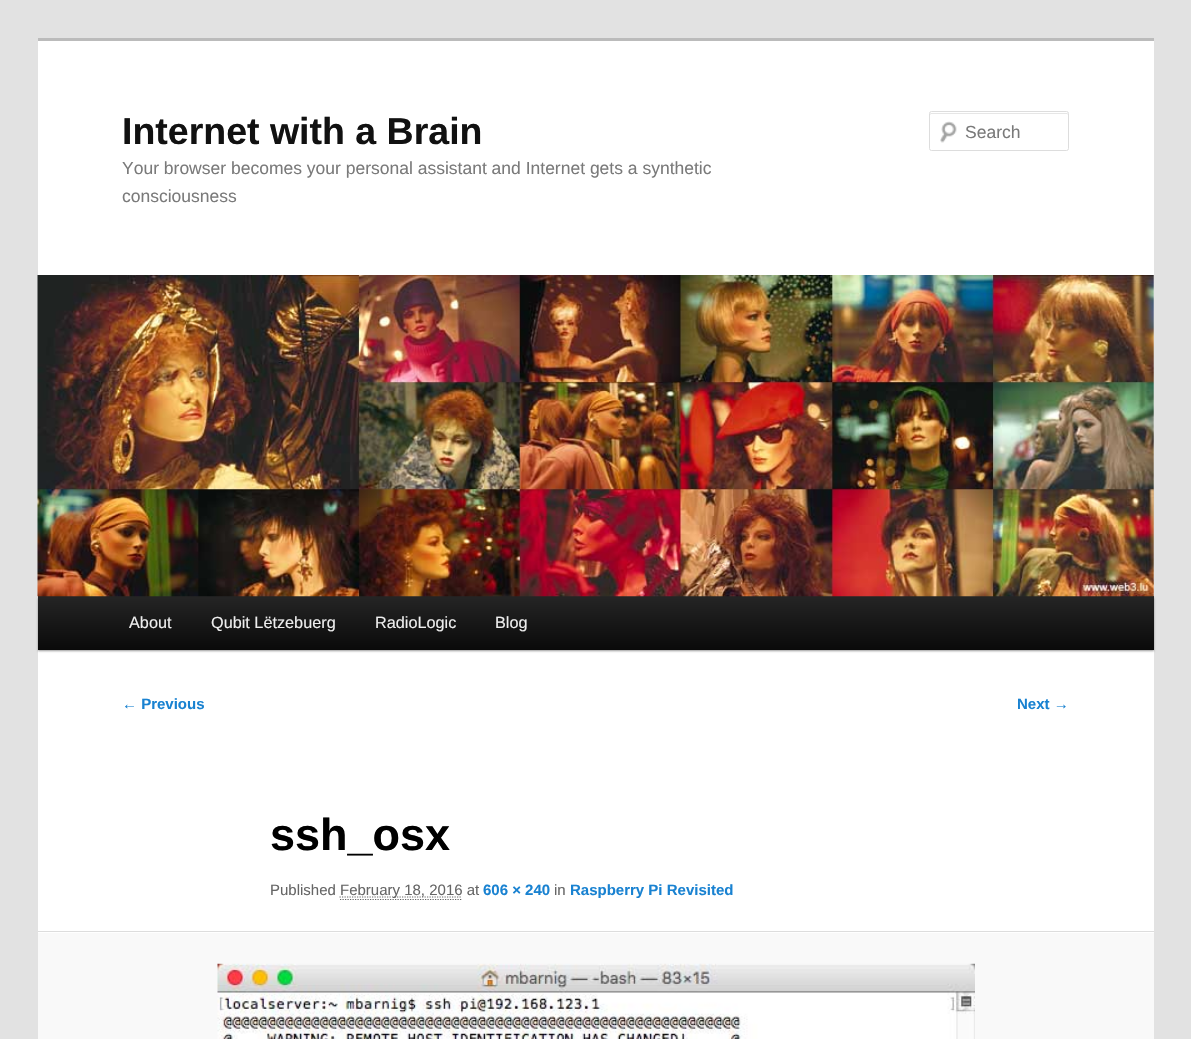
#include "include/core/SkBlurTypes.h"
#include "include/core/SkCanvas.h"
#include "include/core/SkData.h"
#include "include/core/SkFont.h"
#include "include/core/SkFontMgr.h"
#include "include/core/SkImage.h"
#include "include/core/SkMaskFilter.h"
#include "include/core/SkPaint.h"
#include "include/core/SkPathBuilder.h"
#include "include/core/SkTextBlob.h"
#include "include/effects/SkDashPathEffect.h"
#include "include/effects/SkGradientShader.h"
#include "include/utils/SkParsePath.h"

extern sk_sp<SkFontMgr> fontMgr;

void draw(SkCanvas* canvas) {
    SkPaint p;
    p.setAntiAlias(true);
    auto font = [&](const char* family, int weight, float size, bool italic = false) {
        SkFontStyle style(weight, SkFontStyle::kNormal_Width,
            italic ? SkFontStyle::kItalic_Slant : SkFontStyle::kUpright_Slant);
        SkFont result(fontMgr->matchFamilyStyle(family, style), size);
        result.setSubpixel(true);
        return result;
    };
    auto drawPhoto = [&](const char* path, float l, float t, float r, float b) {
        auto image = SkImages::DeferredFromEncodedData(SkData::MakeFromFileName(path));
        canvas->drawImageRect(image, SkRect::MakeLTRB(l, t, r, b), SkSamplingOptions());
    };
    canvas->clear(0xFFE2E2E2);
    p.setColor(0xFFFFFFFF);
    canvas->drawRect(SkRect::MakeLTRB(38, 41, 1154, 933), p);
    p.setColor(0xFFBBBBBB);
    canvas->drawRect(SkRect::MakeLTRB(38, 38, 1154, 41), p);
    auto font1 = font("Liberation Sans", 700, 37.5f);
    p.setColor(0xFF111111);
    canvas->drawString("Internet with a Brain", 122, 144, font1, p);
    auto font2 = font("Liberation Sans", 400, 17.5f);
    p.setColor(0xFF7A7A7A);
    canvas->drawString("Your browser becomes your personal assistant and Internet gets a synthetic", 122, 174, font2, p);
    canvas->drawString("consciousness", 122, 202, font2, p);
    drawPhoto("media/1.png", 940, 121, 957, 143);
    p.setColor(0xFFE6E6E6);
    canvas->drawPath(SkPathBuilder().moveTo(931, 114).lineTo(1066, 114).cubicTo(1067, 114, 1068, 114, 1068, 115).cubicTo(1068, 114, 1068, 113, 1067, 113).lineTo(931, 113).cubicTo(930, 113, 930, 114, 930, 115).close().detach(), p);
    p.setStyle(SkPaint::kStroke_Style);
    p.setStrokeWidth(1);
    p.setColor(0xFFDDDDDD);
    canvas->drawRoundRect(SkRect::MakeLTRB(929.5f, 111.5f, 1068.5f, 150.5f), 2, 2, p);
    p.setStyle(SkPaint::kFill_Style);
    p.setColor(0xFF7A7A7A);
    canvas->drawString("Search", 965, 138, font2, p);
    p.setColor(0x66000000);
    p.setMaskFilter(SkMaskFilter::MakeBlur(kNormal_SkBlurStyle, 1));
    canvas->drawRect(SkRect::MakeLTRB(38, 598, 1154, 651), p);
    p.setMaskFilter(nullptr);
    {
        const SkColor colors[] = {0xFF252525, 0xFF0A0A0A};
        const float stops[] = {0, 1};
        const SkPoint ends[] = {{596, 596}, {596, 650}};
        p.setShader(SkGradientShader::MakeLinear(ends, colors, stops, 2, SkTileMode::kClamp));
        p.setAlpha(255);
    }
    canvas->drawRect(SkRect::MakeLTRB(38, 596, 1154, 650), p);
    drawPhoto("media/2.png", 37, 275, 1154, 597);
    auto font3 = font("Liberation Sans", 400, 16.25f);
    p.setShader(nullptr);
    p.setColor(0xFFEEEEEE);
    {
        const struct { const char* s; float x, y; } items[] = {
            {"About", 129, 628},
            {"Qubit Lëtzebuerg", 211, 628},
            {"RadioLogic", 375, 628},
            {"Blog", 495, 628},
        };
        for (auto [s, x, y] : items) {
            canvas->drawString(s, x, y, font3, p);
        }
    }
    auto font4 = font("Liberation Sans", 700, 15);
    p.setColor(0xFF1982D1);
    canvas->drawString("← Previous", 122, 709, font4, p);
    canvas->drawString("Next →", 1017, 709, font4, p);
    auto font5 = font("Liberation Sans", 700, 45);
    p.setColor(0xFF000000);
    canvas->drawString("ssh_osx", 270, 850, font5, p);
    auto font6 = font("Liberation Sans", 400, 15);
    p.setColor(0xFF666666);
    canvas->drawString("Published", 270, 895, font6, p);
    p.setStyle(SkPaint::kStroke_Style);
    p.setStrokeWidth(1.2f);
    p.setPathEffect(SkDashPathEffect::Make({{1.25f, 1.25f}}, 0));
    canvas->drawPath(SkPathBuilder().moveTo(340, 899.5f).lineTo(462.5f, 899.5f).detach(), p);
    p.setPathEffect(nullptr);
    p.setPathEffect(SkDashPathEffect::Make({{1.25f, 1.25f}}, 0));
    canvas->drawPath(SkPathBuilder().moveTo(339.5f, 897).lineTo(462, 897).detach(), p);
    p.setPathEffect(nullptr);
    p.setStyle(SkPaint::kFill_Style);
    canvas->drawString("February 18, 2016 at", 340, 895, font6, p);
    p.setColor(0xFF1982D1);
    canvas->drawString("606 × 240", 483, 895, font4, p);
    p.setColor(0xFF666666);
    canvas->drawString("in", 554, 895, font6, p);
    p.setColor(0xFF1982D1);
    canvas->drawString("Raspberry Pi Revisited", 570, 895, font4, p);
    p.setColor(0xFFF9F9F9);
    canvas->drawRect(SkRect::MakeLTRB(38, 933, 1154, 1039), p);
    p.setColor(0xFFDDDDDD);
    canvas->drawRect(SkRect::MakeLTRB(38, 931, 1154, 932), p);
    drawPhoto("media/3.png", 217, 963, 975, 1039);
}
